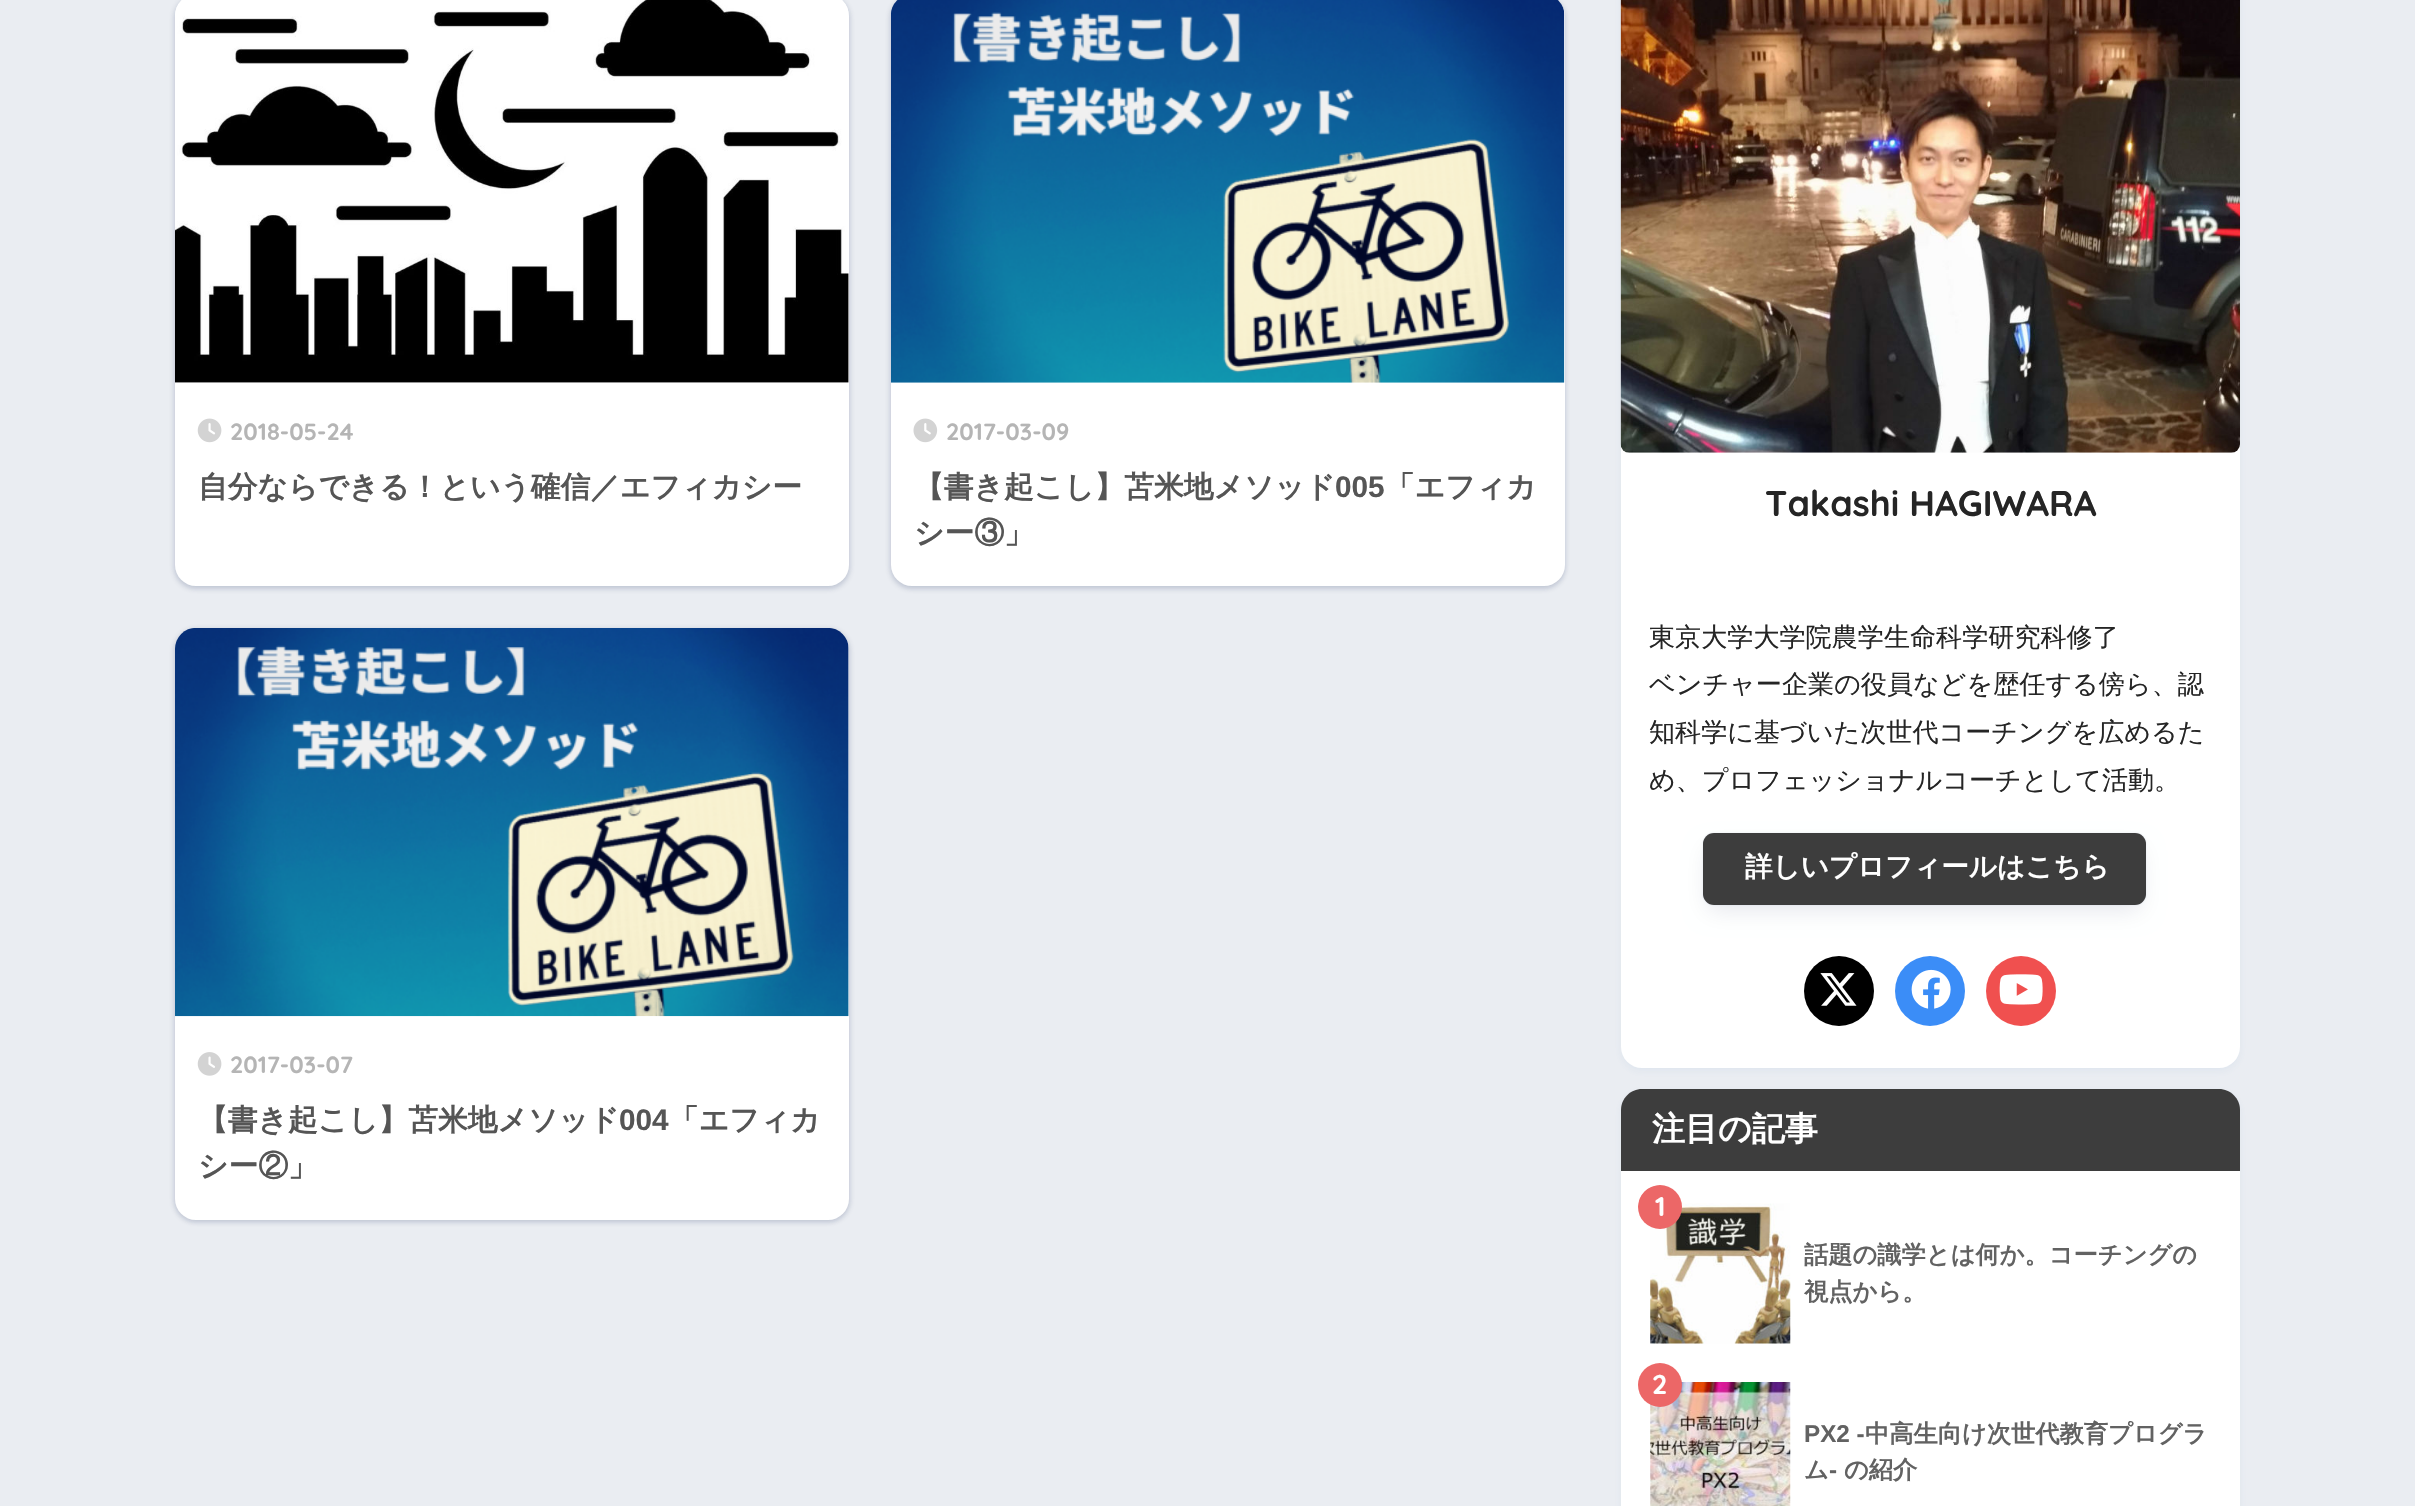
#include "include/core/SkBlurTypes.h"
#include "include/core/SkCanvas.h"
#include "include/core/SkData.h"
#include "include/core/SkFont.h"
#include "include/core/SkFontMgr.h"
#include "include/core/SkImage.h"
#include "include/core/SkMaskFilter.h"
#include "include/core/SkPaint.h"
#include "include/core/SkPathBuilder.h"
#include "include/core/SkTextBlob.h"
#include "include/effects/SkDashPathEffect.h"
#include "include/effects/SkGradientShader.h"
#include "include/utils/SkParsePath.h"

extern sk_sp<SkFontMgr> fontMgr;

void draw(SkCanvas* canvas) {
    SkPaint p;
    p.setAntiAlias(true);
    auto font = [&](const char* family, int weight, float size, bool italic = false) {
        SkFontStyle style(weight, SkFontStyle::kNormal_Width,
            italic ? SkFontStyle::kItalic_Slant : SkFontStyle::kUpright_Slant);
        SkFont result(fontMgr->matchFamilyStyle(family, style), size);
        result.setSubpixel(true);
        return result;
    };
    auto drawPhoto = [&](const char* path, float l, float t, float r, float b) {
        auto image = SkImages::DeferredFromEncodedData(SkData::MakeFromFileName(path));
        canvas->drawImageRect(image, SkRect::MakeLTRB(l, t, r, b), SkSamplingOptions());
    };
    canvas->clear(0xFFEAEDF2);
    p.setColor(0x1A182C54);
    p.setMaskFilter(SkMaskFilter::MakeBlur(kNormal_SkBlurStyle, 2.5f));
    canvas->drawRoundRect(SkRect::MakeLTRB(173, -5, 851, 590), 23, 23, p);
    p.setMaskFilter(nullptr);
    p.setMaskFilter(SkMaskFilter::MakeBlur(kNormal_SkBlurStyle, 2));
    canvas->drawRoundRect(SkRect::MakeLTRB(175, -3, 849, 588), 21, 21, p);
    p.setMaskFilter(nullptr);
    p.setColor(0xFFFFFFFF);
    canvas->drawRoundRect(SkRect::MakeLTRB(175, -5, 849, 586), 21, 21, p);
    drawPhoto("media/1.png", 175, 0, 849, 383);
    drawPhoto("media/2.png", 197, 418, 222, 443);
    auto font1 = font("Quicksand", 700, 23.5f);
    p.setColor(0xFFB5B5B5);
    canvas->drawString("2018-05-24", 230, 440, font1, p);
    auto font2 = font("WenQuanYi Zen Hei", 700, 29.75f);
    p.setColor(0xFF555555);
    canvas->drawString("自分ならできる！という確信／エフィカシー", 198, 497, font2, p);
    p.setColor(0x1A182C54);
    p.setMaskFilter(SkMaskFilter::MakeBlur(kNormal_SkBlurStyle, 2.5f));
    canvas->drawRoundRect(SkRect::MakeLTRB(889, -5, 1566, 590), 23, 23, p);
    p.setMaskFilter(nullptr);
    p.setMaskFilter(SkMaskFilter::MakeBlur(kNormal_SkBlurStyle, 2));
    canvas->drawRoundRect(SkRect::MakeLTRB(891, -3, 1565, 588), 21, 21, p);
    p.setMaskFilter(nullptr);
    p.setColor(0xFFFFFFFF);
    canvas->drawRoundRect(SkRect::MakeLTRB(891, -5, 1565, 586), 21, 21, p);
    drawPhoto("media/3.png", 891, 0, 1565, 383);
    drawPhoto("media/4.png", 913, 418, 938, 443);
    p.setColor(0xFFB5B5B5);
    canvas->drawString("2017-03-09", 946, 440, font1, p);
    p.setColor(0xFF555555);
    canvas->drawString("【書き起こし】苫米地メソッド", 914, 497, font2, p);
    auto font3 = font("Liberation Sans", 700, 29.75f);
    canvas->drawString("005", 1335, 497, font3, p);
    canvas->drawString("「エフィカ", 1385, 497, font2, p);
    canvas->drawString("シー③」", 914, 543, font2, p);
    p.setColor(0x1A182C54);
    p.setMaskFilter(SkMaskFilter::MakeBlur(kNormal_SkBlurStyle, 2.5f));
    canvas->drawRoundRect(SkRect::MakeLTRB(173, 628, 851, 1223), 23, 23, p);
    p.setMaskFilter(nullptr);
    p.setMaskFilter(SkMaskFilter::MakeBlur(kNormal_SkBlurStyle, 2));
    canvas->drawRoundRect(SkRect::MakeLTRB(175, 630, 849, 1222), 21, 21, p);
    p.setMaskFilter(nullptr);
    p.setColor(0xFFFFFFFF);
    canvas->drawRoundRect(SkRect::MakeLTRB(175, 628, 849, 1220), 21, 21, p);
    drawPhoto("media/5.png", 175, 628, 849, 1017);
    drawPhoto("media/6.png", 197, 1052, 222, 1076);
    p.setColor(0xFFB5B5B5);
    canvas->drawString("2017-03-07", 230, 1073, font1, p);
    p.setColor(0xFF555555);
    canvas->drawString("【書き起こし】苫米地メソッド", 198, 1130, font2, p);
    canvas->drawString("004", 619, 1130, font3, p);
    canvas->drawString("「エフィカ", 669, 1130, font2, p);
    canvas->drawString("シー②」", 198, 1176, font2, p);
    p.setColor(0x124385BB);
    p.setMaskFilter(SkMaskFilter::MakeBlur(kNormal_SkBlurStyle, 3.5f));
    canvas->drawRoundRect(SkRect::MakeLTRB(1621, -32, 2240, 1071), 21, 21, p);
    p.setMaskFilter(nullptr);
    p.setColor(0xFFFFFFFF);
    canvas->drawRoundRect(SkRect::MakeLTRB(1621, -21, 2240, 1068), 21, 21, p);
    drawPhoto("media/7.png", 1620, 0, 2240, 453);
    auto font4 = font("Quicksand", 700, 35.75f);
    p.setColor(0xFF252525);
    canvas->drawString("Takashi HAGIWARA", 1765, 516, font4, p);
    auto font5 = font("WenQuanYi Zen Hei", 500, 26.1f);
    {
        const struct { const char* s; float x, y; } items[] = {
            {"東京大学大学院農学生命科学研究科修了", 1649, 646},
            {"ベンチャー企業の役員などを歴任する傍ら、認", 1649, 693},
            {"知科学に基づいた次世代コーチングを広めるた", 1649, 741},
            {"め、プロフェッショナルコーチとして活動。", 1649, 789},
        };
        for (auto [s, x, y] : items) {
            canvas->drawString(s, x, y, font5, p);
        }
    }
    p.setColor(0x1A001E64);
    p.setMaskFilter(SkMaskFilter::MakeBlur(kNormal_SkBlurStyle, 1));
    canvas->drawRoundRect(SkRect::MakeLTRB(1703, 833, 2146, 905), 11, 11, p);
    p.setMaskFilter(nullptr);
    p.setColor(0x1A000C42);
    p.setMaskFilter(SkMaskFilter::MakeBlur(kNormal_SkBlurStyle, 11.5f));
    canvas->drawRoundRect(SkRect::MakeLTRB(1708, 849, 2140, 910), 5, 5, p);
    p.setMaskFilter(nullptr);
    p.setColor(0xFF3D3D3D);
    canvas->drawRoundRect(SkRect::MakeLTRB(1703, 833, 2146, 905), 11, 11, p);
    auto font6 = font("WenQuanYi Zen Hei", 700, 27.5f);
    p.setColor(0xFFFFFFFF);
    canvas->drawString("詳しいプロフィールはこちら", 1745, 876, font6, p);
    p.setColor(0xFF000000);
    canvas->drawCircle(1839, 991, 35, p);
    drawPhoto("media/8.png", 1820, 973, 1857, 1006);
    p.setColor(0xFF3B8DF7);
    canvas->drawCircle(1930, 991, 35, p);
    drawPhoto("media/9.png", 1911, 969, 1951, 1009);
    p.setColor(0xFFF0504F);
    canvas->drawCircle(2021, 991, 35, p);
    drawPhoto("media/10.png", 1999, 974, 2043, 1005);
    p.setColor(0x124385BB);
    p.setMaskFilter(SkMaskFilter::MakeBlur(kNormal_SkBlurStyle, 3.5f));
    canvas->drawRoundRect(SkRect::MakeLTRB(1621, 1092, 2240, 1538), 21, 21, p);
    p.setMaskFilter(nullptr);
    p.setColor(0xFF3D3D3D);
    canvas->drawPath(SkPathBuilder().moveTo(1642, 1089).lineTo(2219, 1089).cubicTo(2230.5f, 1089, 2240, 1098.5f, 2240, 1110).lineTo(2240, 1171).lineTo(1621, 1171).lineTo(1621, 1110).cubicTo(1621, 1098.5f, 1630.5f, 1089, 1642, 1089).close().detach(), p);
    auto font7 = font("WenQuanYi Zen Hei", 700, 33);
    p.setColor(0xFFFFFFFF);
    canvas->drawString("注目の記事", 1652, 1140, font7, p);
    canvas->drawRect(SkRect::MakeLTRB(1621, 1171, 2240, 1506), p);
    drawPhoto("media/11.png", 1650, 1203, 1791, 1344);
    canvas->save();
    canvas->clipPath(SkPathBuilder().moveTo(1659, 1185).lineTo(2202, 1185).cubicTo(2213.5f, 1185, 2223, 1194.5f, 2223, 1206).lineTo(2223, 2056).cubicTo(2223, 2067.5f, 2213.5f, 2077, 2202, 2077).lineTo(1659, 2077).cubicTo(1647.5f, 2077, 1638, 2067.5f, 1638, 2056).lineTo(1638, 1206).cubicTo(1638, 1194.5f, 1647.5f, 1185, 1659, 1185).close().detach(), true);
    p.setColor(0xFFEC6767);
    canvas->drawCircle(1660, 1207, 22, p);
    canvas->restore();
    auto font8 = font("Quicksand", 700, 27);
    p.setColor(0xFFFFFFFF);
    canvas->drawString("1", 1655, 1216, font8, p);
    auto font9 = font("WenQuanYi Zen Hei", 700, 24.25f);
    p.setColor(0xFF626262);
    canvas->drawString("話題の識学とは何か。コーチングの", 1804, 1263, font9, p);
    canvas->drawString("視点から。", 1804, 1300, font9, p);
    drawPhoto("media/12.png", 1650, 1382, 1791, 1506);
    p.setColor(0xFFEC6767);
    canvas->drawCircle(1660, 1385, 22, p);
    p.setColor(0xFFFFFFFF);
    canvas->drawString("2", 1652, 1394, font8, p);
    auto font10 = font("Liberation Sans", 700, 24.25f);
    p.setColor(0xFF626262);
    canvas->drawString("PX2 -", 1804, 1442, font10, p);
    canvas->drawString("中高生向け次世代教育プログラ", 1865, 1442, font9, p);
    canvas->drawString("ム", 1804, 1478, font9, p);
    canvas->drawString("-", 1829, 1478, font10, p);
    canvas->drawString("の紹介", 1844, 1478, font9, p);
}
